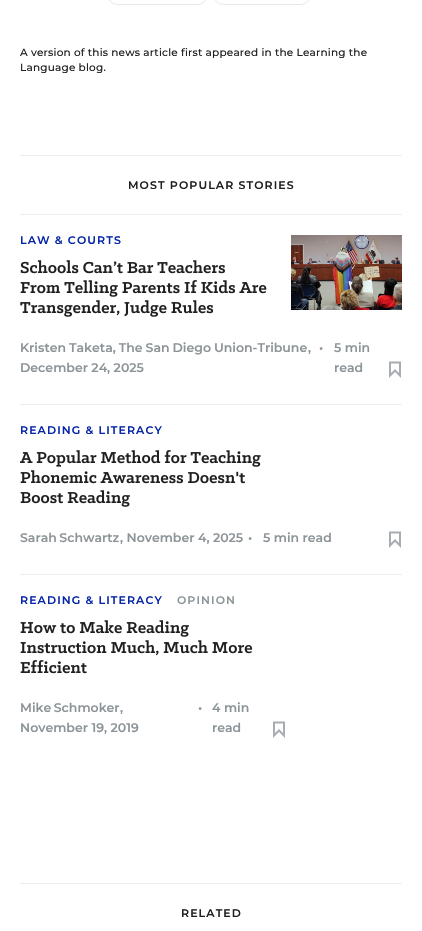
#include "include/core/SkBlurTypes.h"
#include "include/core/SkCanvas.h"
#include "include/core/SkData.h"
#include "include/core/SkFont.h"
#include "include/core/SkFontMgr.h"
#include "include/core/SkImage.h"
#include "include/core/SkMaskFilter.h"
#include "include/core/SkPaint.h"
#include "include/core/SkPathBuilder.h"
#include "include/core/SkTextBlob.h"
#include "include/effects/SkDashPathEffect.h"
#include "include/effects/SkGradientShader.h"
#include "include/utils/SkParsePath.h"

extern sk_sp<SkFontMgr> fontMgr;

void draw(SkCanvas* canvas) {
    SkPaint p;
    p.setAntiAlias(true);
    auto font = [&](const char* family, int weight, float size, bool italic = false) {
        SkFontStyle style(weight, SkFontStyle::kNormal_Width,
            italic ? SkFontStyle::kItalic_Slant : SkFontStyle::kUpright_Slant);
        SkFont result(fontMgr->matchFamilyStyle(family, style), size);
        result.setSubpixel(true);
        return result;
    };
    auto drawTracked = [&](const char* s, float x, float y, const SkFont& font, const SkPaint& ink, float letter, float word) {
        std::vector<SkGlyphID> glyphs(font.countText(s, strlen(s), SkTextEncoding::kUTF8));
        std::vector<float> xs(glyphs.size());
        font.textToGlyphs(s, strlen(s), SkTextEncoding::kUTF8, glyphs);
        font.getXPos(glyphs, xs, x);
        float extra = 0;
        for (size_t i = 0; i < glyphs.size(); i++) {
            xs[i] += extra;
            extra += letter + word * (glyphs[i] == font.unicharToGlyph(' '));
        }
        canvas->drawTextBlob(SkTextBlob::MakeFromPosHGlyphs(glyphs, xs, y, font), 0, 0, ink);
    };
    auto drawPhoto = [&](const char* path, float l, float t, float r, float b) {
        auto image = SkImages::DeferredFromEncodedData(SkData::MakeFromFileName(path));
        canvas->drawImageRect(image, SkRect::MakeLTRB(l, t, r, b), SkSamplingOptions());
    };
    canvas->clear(0xFFFFFFFF);
    p.setStyle(SkPaint::kStroke_Style);
    p.setStrokeWidth(1);
    p.setColor(0xFFE4E9EA);
    canvas->drawRoundRect(SkRect::MakeLTRB(107.5f, -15.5f, 207.5f, 4.5f), 14.5f, 14.5f, p);
    canvas->drawRoundRect(SkRect::MakeLTRB(213.5f, -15.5f, 310.5f, 4.5f), 14.5f, 14.5f, p);
    auto font1 = font("Montserrat", 500, 10.5f);
    p.setStyle(SkPaint::kFill_Style);
    p.setColor(0xFF1F1F1F);
    drawTracked("A version of this news article first appeared in the Learning the", 20, 56, font1, p, 0.2f, 0);
    drawTracked("Language blog.", 20, 71, font1, p, 0.2f, 0);
    p.setColor(0xFFEBEFF0);
    canvas->drawRect(SkRect::MakeLTRB(20, 155, 402, 156), p);
    auto font2 = font("Montserrat", 600, 11);
    p.setColor(0xFF1F1F1F);
    drawTracked("MOST POPULAR STORIES", 128, 189, font2, p, 1.1f, 0);
    p.setColor(0xFFEBEFF0);
    canvas->drawRect(SkRect::MakeLTRB(20, 214, 402, 215), p);
    canvas->drawRect(SkRect::MakeLTRB(20, 404, 402, 405), p);
    drawPhoto("media/1.png", 291, 235, 402, 310);
    p.setColor(0xFF0626A9);
    drawTracked("LAW & COURTS", 20, 244, font2, p, 1.1f, 0);
    drawPhoto("media/2.png", 20, 260, 225, 274);
    drawPhoto("media/3.png", 20, 280, 267, 297);
    drawPhoto("media/4.png", 20, 300, 214, 317);
    auto font3 = font("Montserrat", 600, 12.5f);
    p.setColor(0xFF8D9498);
    drawTracked("Kristen Taketa, The San Diego Union-Tribune", 20, 352, font3, p, 0, -0.5f);
    {
        const struct { const char* s; float x, y; } items[] = {
            {",", 308, 352},
            {"December 24, 2025", 20, 372},
            {"•", 319, 352},
            {"5 min", 334, 352},
            {"read", 334, 372},
        };
        for (auto [s, x, y] : items) {
            canvas->drawString(s, x, y, font3, p);
        }
    }
    p.setStyle(SkPaint::kStroke_Style);
    p.setStrokeWidth(2);
    p.setColor(0xFFA7ADB2);
    canvas->drawPath(SkPathBuilder().moveTo(390, 362.5f).lineTo(400, 362.5f).lineTo(400, 375.5f).lineTo(395, 370.5f).lineTo(390, 375.5f).close().detach(), p);
    p.setStyle(SkPaint::kFill_Style);
    p.setColor(0xFFEBEFF0);
    canvas->drawRect(SkRect::MakeLTRB(20, 574, 402, 575), p);
    p.setColor(0xFF0626A9);
    drawTracked("READING & LITERACY", 20, 434, font2, p, 1.1f, 0);
    drawPhoto("media/5.png", 20, 450, 261, 467);
    drawPhoto("media/6.png", 20, 470, 245, 484);
    drawPhoto("media/7.png", 20, 490, 130, 507);
    p.setColor(0xFF8D9498);
    drawTracked("Sarah Schwartz", 20, 542, font3, p, 0, -1);
    {
        const struct { const char* s; float x, y; } items[] = {
            {", November 4, 2025", 120, 542},
            {"•", 248, 542},
            {"5 min read", 263, 542},
        };
        for (auto [s, x, y] : items) {
            canvas->drawString(s, x, y, font3, p);
        }
    }
    p.setStyle(SkPaint::kStroke_Style);
    p.setColor(0xFFA7ADB2);
    canvas->drawPath(SkPathBuilder().moveTo(390, 532.5f).lineTo(400, 532.5f).lineTo(400, 545.5f).lineTo(395, 540.5f).lineTo(390, 545.5f).close().detach(), p);
    p.setStyle(SkPaint::kFill_Style);
    p.setColor(0xFF0626A9);
    drawTracked("READING & LITERACY", 20, 604, font2, p, 1.1f, 0);
    p.setColor(0xFF8D9498);
    drawTracked("OPINION", 177, 604, font2, p, 1.1f, 0);
    drawPhoto("media/8.png", 20, 620, 189, 637);
    drawPhoto("media/9.png", 20, 640, 253, 656);
    drawPhoto("media/10.png", 20, 660, 87, 674);
    drawTracked("Mike Schmoker", 20, 712, font3, p, 0, -1);
    {
        const struct { const char* s; float x, y; } items[] = {
            {",", 120, 712},
            {"November 19, 2019", 20, 732},
            {"•", 198, 712},
            {"4 min", 212, 712},
            {"read", 212, 732},
        };
        for (auto [s, x, y] : items) {
            canvas->drawString(s, x, y, font3, p);
        }
    }
    p.setStyle(SkPaint::kStroke_Style);
    p.setColor(0xFFA7ADB2);
    canvas->drawPath(SkPathBuilder().moveTo(274, 722.5f).lineTo(284, 722.5f).lineTo(284, 735.5f).lineTo(279, 730.5f).lineTo(274, 735.5f).close().detach(), p);
    p.setStyle(SkPaint::kFill_Style);
    p.setColor(0xFFEBEFF0);
    canvas->drawRect(SkRect::MakeLTRB(20, 883, 402, 884), p);
    p.setColor(0xFF1F1F1F);
    drawTracked("RELATED", 181, 917, font2, p, 1.1f, 0);
}
